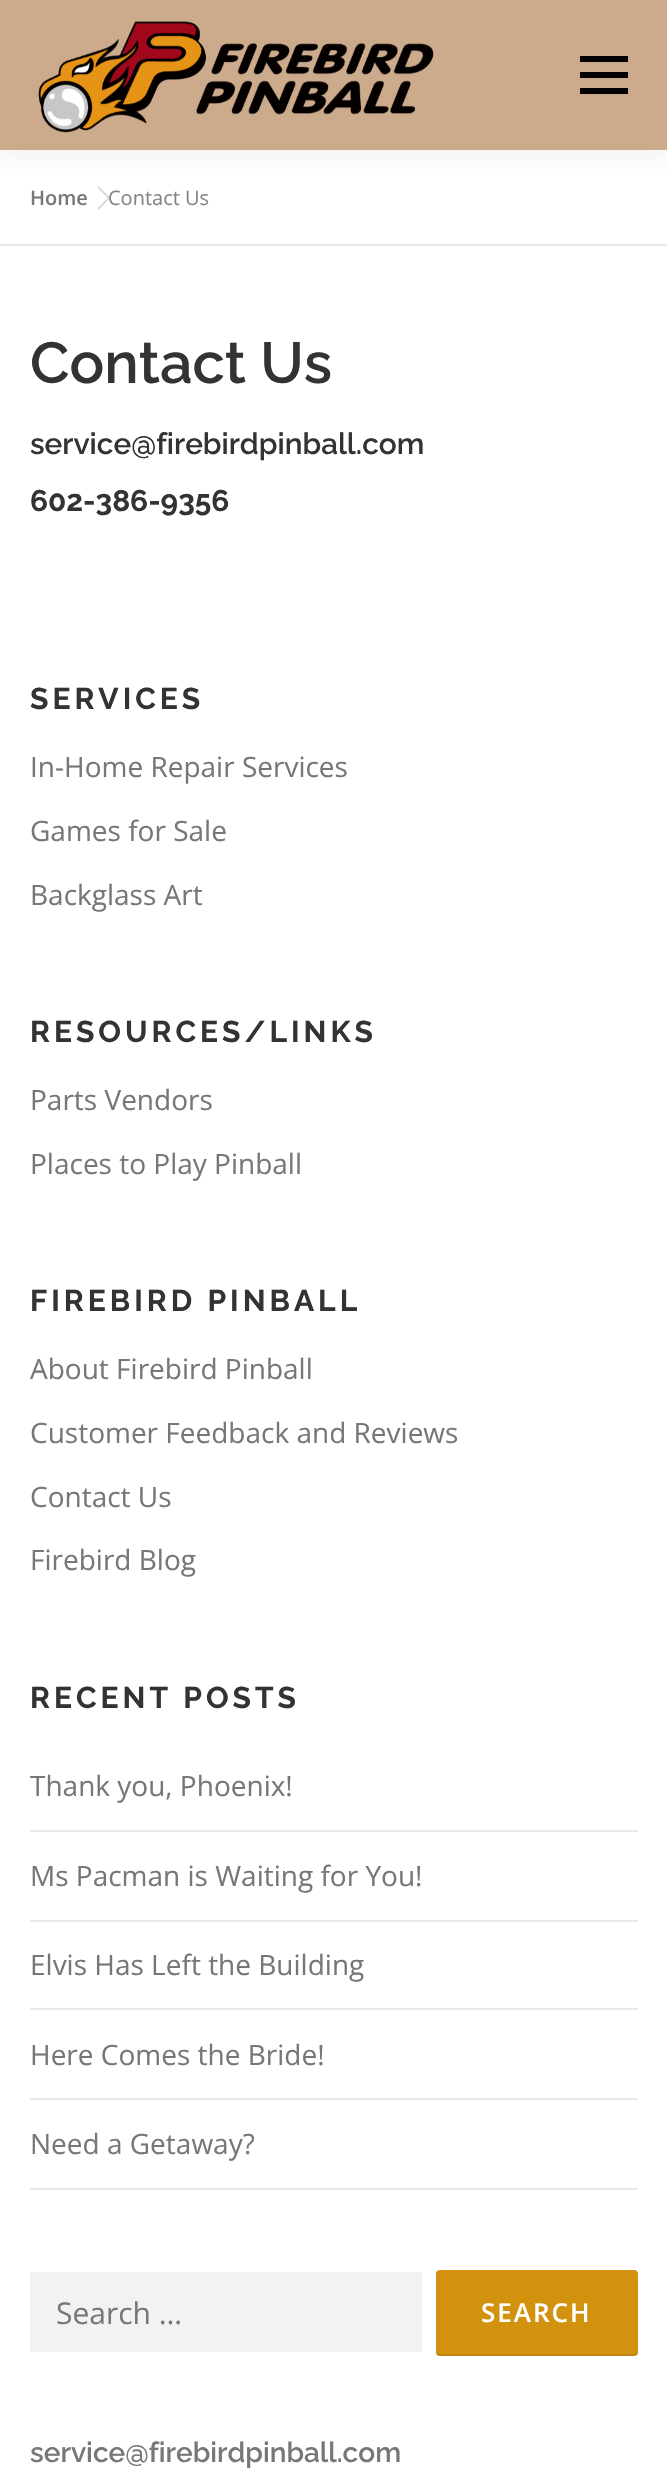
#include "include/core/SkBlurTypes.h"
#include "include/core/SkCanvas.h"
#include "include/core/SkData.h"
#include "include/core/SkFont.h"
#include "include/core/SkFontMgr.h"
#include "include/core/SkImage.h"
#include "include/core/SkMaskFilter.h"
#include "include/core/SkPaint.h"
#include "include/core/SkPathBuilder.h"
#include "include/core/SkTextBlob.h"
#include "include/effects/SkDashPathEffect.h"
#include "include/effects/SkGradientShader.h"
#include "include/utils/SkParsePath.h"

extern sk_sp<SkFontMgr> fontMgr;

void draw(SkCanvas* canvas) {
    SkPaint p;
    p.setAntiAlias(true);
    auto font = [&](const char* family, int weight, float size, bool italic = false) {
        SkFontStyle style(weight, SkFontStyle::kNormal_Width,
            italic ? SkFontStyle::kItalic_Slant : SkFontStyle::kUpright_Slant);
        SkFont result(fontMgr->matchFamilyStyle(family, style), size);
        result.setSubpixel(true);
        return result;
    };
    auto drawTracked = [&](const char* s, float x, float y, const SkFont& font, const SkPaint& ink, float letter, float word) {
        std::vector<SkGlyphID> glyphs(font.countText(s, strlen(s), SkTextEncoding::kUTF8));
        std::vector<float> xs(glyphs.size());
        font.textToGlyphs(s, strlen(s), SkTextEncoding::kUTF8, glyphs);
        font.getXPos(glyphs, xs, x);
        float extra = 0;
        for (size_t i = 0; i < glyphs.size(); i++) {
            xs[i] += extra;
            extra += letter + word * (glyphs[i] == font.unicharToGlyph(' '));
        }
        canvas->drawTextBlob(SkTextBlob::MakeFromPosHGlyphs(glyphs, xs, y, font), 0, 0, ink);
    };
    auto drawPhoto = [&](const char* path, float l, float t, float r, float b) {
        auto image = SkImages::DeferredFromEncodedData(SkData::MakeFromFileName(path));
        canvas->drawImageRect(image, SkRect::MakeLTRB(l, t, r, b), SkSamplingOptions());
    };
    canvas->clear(0xFFFFFFFF);
    p.setColor(0x33000000);
    canvas->drawPath(SkPathBuilder().moveTo(98, 210).lineTo(98, 186).lineTo(110, 198).close().detach(), p);
    p.setColor(0xFFFFFFFF);
    canvas->drawPath(SkPathBuilder().moveTo(98, 208).lineTo(98, 188).lineTo(108, 198).close().detach(), p);
    p.setColor(0x0F323232);
    p.setMaskFilter(SkMaskFilter::MakeBlur(kNormal_SkBlurStyle, 10));
    canvas->drawRect(SkRect::MakeLTRB(0, 10, 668, 160), p);
    p.setMaskFilter(nullptr);
    p.setColor(0xFFCCAB8C);
    canvas->drawRect(SkRect::MakeLTRB(0, 0, 667, 150), p);
    drawPhoto("media/1.png", 38, 21, 434, 133);
    {
        const struct { float l, t, r, b; SkColor color; } items[] = {
            {580, 72, 628, 78, 0xFF000000},
            {580, 56, 628, 62, 0xFF000000},
            {580, 88, 628, 94, 0xFF000000},
            {0, 244, 667, 246, 0xFFE9E9E9},
        };
        for (auto [l, t, r, b, color] : items) {
            p.setColor(color);
            canvas->drawRect(SkRect::MakeLTRB(l, t, r, b), p);
        }
    }
    auto font1 = font("Open Sans", 600, 20);
    p.setColor(0xFF777777);
    canvas->drawString("Home", 30, 205, font1, p);
    auto font2 = font("Open Sans", 400, 20);
    p.setColor(0xFF858585);
    canvas->drawString("Contact Us", 108, 205, font2, p);
    auto font3 = font("Raleway", 600, 57.75f);
    p.setColor(0xFF333333);
    canvas->drawString("Contact Us", 30, 383, font3, p);
    auto font4 = font("Raleway", 600, 29.75f);
    canvas->drawString("service@firebirdpinball.com", 30, 454, font4, p);
    auto font5 = font("Raleway", 700, 29.75f);
    canvas->drawString("602-386-9356", 30, 511, font5, p);
    auto font6 = font("Raleway", 700, 30);
    drawTracked("SERVICES", 30, 709, font6, p, 4, 0);
    auto font7 = font("Open Sans", 400, 28);
    p.setColor(0xFF777777);
    {
        const struct { const char* s; float x, y; } items[] = {
            {"In-Home Repair Services", 30, 777},
            {"Games for Sale", 30, 841},
            {"Backglass Art", 30, 905},
        };
        for (auto [s, x, y] : items) {
            canvas->drawString(s, x, y, font7, p);
        }
    }
    p.setColor(0xFF333333);
    drawTracked("RESOURCES/LINKS", 30, 1042, font6, p, 4, 0);
    p.setColor(0xFF777777);
    canvas->drawString("Parts Vendors", 30, 1110, font7, p);
    canvas->drawString("Places to Play Pinball", 30, 1174, font7, p);
    p.setColor(0xFF333333);
    drawTracked("FIREBIRD PINBALL", 30, 1311, font6, p, 4, 0);
    p.setColor(0xFF777777);
    {
        const struct { const char* s; float x, y; } items[] = {
            {"About Firebird Pinball", 30, 1379},
            {"Customer Feedback and Reviews", 30, 1443},
            {"Contact Us", 30, 1507},
            {"Firebird Blog", 30, 1570},
        };
        for (auto [s, x, y] : items) {
            canvas->drawString(s, x, y, font7, p);
        }
    }
    p.setColor(0xFF333333);
    drawTracked("RECENT POSTS", 30, 1708, font6, p, 4, 0);
    p.setColor(0xFFE9E9E9);
    canvas->drawRect(SkRect::MakeLTRB(30, 1830, 638, 1832), p);
    p.setColor(0xFF777777);
    canvas->drawString("Thank you, Phoenix!", 30, 1796, font7, p);
    p.setColor(0xFFE9E9E9);
    canvas->drawRect(SkRect::MakeLTRB(30, 1920, 638, 1922), p);
    p.setColor(0xFF777777);
    canvas->drawString("Ms Pacman is Waiting for You!", 30, 1886, font7, p);
    p.setColor(0xFFE9E9E9);
    canvas->drawRect(SkRect::MakeLTRB(30, 2008, 638, 2010), p);
    p.setColor(0xFF777777);
    canvas->drawString("Elvis Has Left the Building", 30, 1975, font7, p);
    p.setColor(0xFFE9E9E9);
    canvas->drawRect(SkRect::MakeLTRB(30, 2098, 638, 2100), p);
    p.setColor(0xFF777777);
    canvas->drawString("Here Comes the Bride!", 30, 2065, font7, p);
    p.setColor(0xFFE9E9E9);
    canvas->drawRect(SkRect::MakeLTRB(30, 2188, 638, 2190), p);
    p.setColor(0xFF777777);
    canvas->drawString("Need a Getaway?", 30, 2154, font7, p);
    p.setColor(0xFFF2F2F2);
    canvas->drawRect(SkRect::MakeLTRB(30, 2272, 422, 2352), p);
    auto font8 = font("Open Sans", 400, 30);
    p.setColor(0xFF777777);
    canvas->drawString("Search …", 56, 2324, font8, p);
    p.setColor(0xFFD3920E);
    canvas->drawRoundRect(SkRect::MakeLTRB(436, 2270, 638, 2356), 4, 4, p);
    p.setColor(0x1A000000);
    canvas->drawPath(SkPathBuilder().moveTo(436, 2350).lineTo(436, 2352).cubicTo(436, 2354, 438, 2356, 440, 2356).lineTo(634, 2356).cubicTo(636, 2356, 638, 2354, 638, 2352).lineTo(638, 2350).cubicTo(638, 2352, 636, 2354, 634, 2354).lineTo(440, 2354).cubicTo(438, 2354, 436, 2352, 436, 2350).close().detach(), p);
    auto font9 = font("Open Sans", 600, 26);
    p.setColor(0xFFFFFFFF);
    drawTracked("SEARCH", 481, 2322, font9, p, 2, 0);
    auto font10 = font("Raleway", 600, 28);
    p.setColor(0xFF777777);
    canvas->drawString("service@firebirdpinball.com", 30, 2462, font10, p);
}
